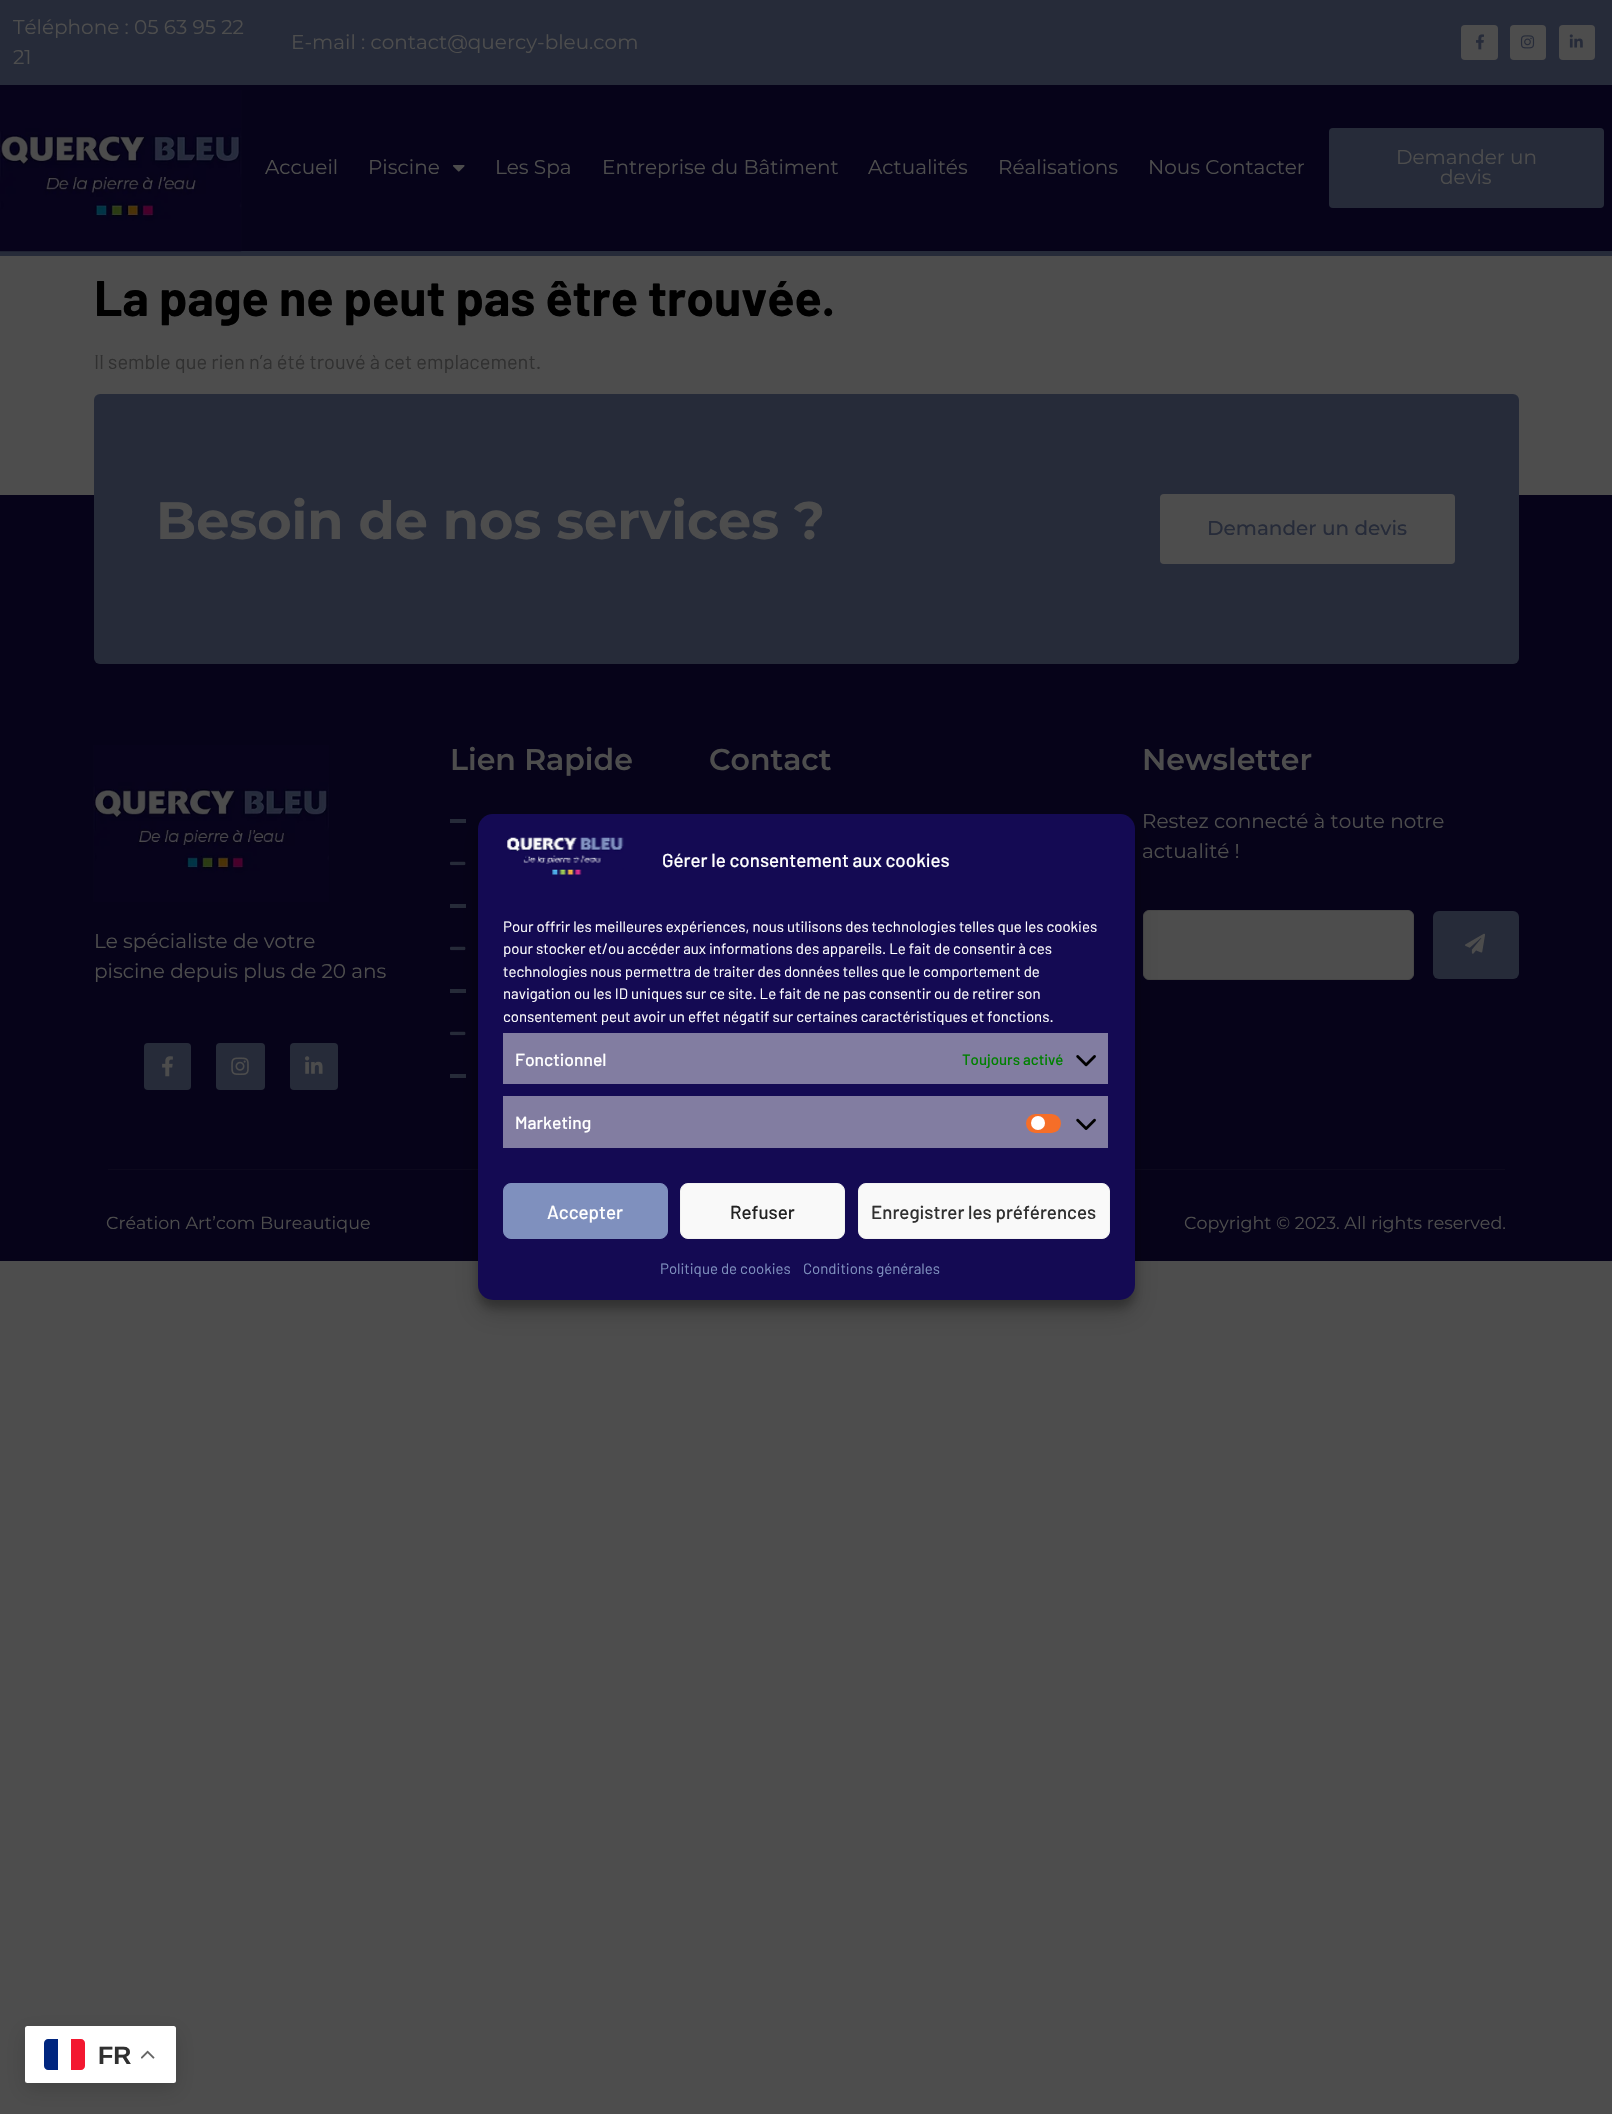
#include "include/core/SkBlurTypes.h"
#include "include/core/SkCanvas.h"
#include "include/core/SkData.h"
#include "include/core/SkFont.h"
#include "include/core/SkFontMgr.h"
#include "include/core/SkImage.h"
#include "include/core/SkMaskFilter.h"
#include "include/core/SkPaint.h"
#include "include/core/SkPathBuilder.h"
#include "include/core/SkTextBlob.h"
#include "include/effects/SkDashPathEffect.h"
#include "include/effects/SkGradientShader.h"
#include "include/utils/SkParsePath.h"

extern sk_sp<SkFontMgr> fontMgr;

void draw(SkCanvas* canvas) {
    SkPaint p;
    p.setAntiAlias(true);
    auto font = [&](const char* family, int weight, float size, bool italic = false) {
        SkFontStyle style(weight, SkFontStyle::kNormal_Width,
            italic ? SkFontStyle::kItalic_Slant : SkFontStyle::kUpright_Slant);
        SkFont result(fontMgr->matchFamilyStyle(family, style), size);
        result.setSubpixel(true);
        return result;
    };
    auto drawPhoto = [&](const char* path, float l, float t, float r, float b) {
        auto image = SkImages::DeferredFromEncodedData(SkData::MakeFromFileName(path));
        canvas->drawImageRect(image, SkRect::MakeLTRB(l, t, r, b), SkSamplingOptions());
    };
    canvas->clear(0xFF4D4D4D);
    p.setColor(0xFF262B39);
    canvas->drawRect(SkRect::MakeLTRB(0, 0, 1612, 85), p);
    auto font1 = font("Montserrat", 400, 20);
    p.setColor(0xFF4D4D4D);
    {
        const struct { const char* s; float x, y; } items[] = {
            {"Téléphone : 05 63 95 22", 13, 34},
            {"21", 13, 64},
            {"E-mail : contact@quercy-bleu.com", 291, 49},
        };
        for (auto [s, x, y] : items) {
            canvas->drawString(s, x, y, font1, p);
        }
    }
    canvas->drawRoundRect(SkRect::MakeLTRB(1461, 25, 1498, 60), 4, 4, p);
    drawPhoto("media/1.png", 1476, 34, 1484, 50);
    canvas->drawRoundRect(SkRect::MakeLTRB(1510, 25, 1546, 60), 4, 4, p);
    drawPhoto("media/2.png", 1520, 35, 1535, 49);
    canvas->drawRoundRect(SkRect::MakeLTRB(1559, 25, 1595, 60), 4, 4, p);
    drawPhoto("media/3.png", 1569, 34, 1583, 48);
    p.setColor(0xFF060319);
    canvas->drawRect(SkRect::MakeLTRB(0, 85, 1612, 251), p);
    p.setColor(0xFF262B39);
    canvas->drawRect(SkRect::MakeLTRB(0, 251, 1612, 256), p);
    drawPhoto("media/4.png", 0, 90, 242, 252);
    p.setColor(0xFF4D4D4D);
    canvas->drawString("Accueil", 265, 174, font1, p);
    canvas->drawString("Piscine", 368, 174, font1, p);
    drawPhoto("media/5.png", 453, 165, 465, 172);
    {
        const struct { const char* s; float x, y; } items[] = {
            {"Les Spa", 495, 174},
            {"Entreprise du Bâtiment", 602, 174},
            {"Actualités", 868, 174},
            {"Réalisations", 998, 174},
            {"Nous Contacter", 1148, 174},
        };
        for (auto [s, x, y] : items) {
            canvas->drawString(s, x, y, font1, p);
        }
    }
    p.setColor(0xFF262B39);
    canvas->drawRoundRect(SkRect::MakeLTRB(1329, 128, 1604, 208), 4, 4, p);
    p.setColor(0xFF4D4D4D);
    canvas->drawString("Demander un", 1396, 164, font1, p);
    canvas->drawString("devis", 1440, 184, font1, p);
    auto font2 = font("Barlow", 700, 50);
    p.setColor(0xFF000000);
    canvas->drawString("La page ne peut pas être trouvée.", 94, 316, font2, p);
    auto font3 = font("Barlow", 400, 20);
    p.setColor(0xFF303030);
    canvas->drawString("Il semble que rien n’a été trouvé à cet emplacement.", 94, 369, font3, p);
    p.setColor(0xFF060319);
    canvas->drawRect(SkRect::MakeLTRB(0, 495, 1612, 1261), p);
    p.setColor(0xFF262B39);
    canvas->drawRoundRect(SkRect::MakeLTRB(94, 394, 1519, 664), 6, 6, p);
    auto font4 = font("Montserrat", 700, 52.5f);
    p.setColor(0xFF4D4D4D);
    canvas->drawString("Besoin de nos services ?", 156, 539, font4, p);
    canvas->drawRoundRect(SkRect::MakeLTRB(1160, 494, 1455, 564), 4, 4, p);
    auto font5 = font("Montserrat", 500, 20);
    p.setColor(0xFF262B39);
    canvas->drawString("Demander un devis", 1207, 535, font5, p);
    auto font6 = font("Montserrat", 600, 30);
    p.setColor(0xFF4D4D4D);
    canvas->drawString("Lien Rapide", 450, 770, font6, p);
    p.setColor(0xFF262B39);
    canvas->drawRect(SkRect::MakeLTRB(450, 819, 466, 823), p);
    drawPhoto("media/6.png", 450, 861, 466, 866);
    canvas->drawRect(SkRect::MakeLTRB(450, 904, 466, 908), p);
    drawPhoto("media/6.png", 450, 946, 466, 951);
    canvas->drawRect(SkRect::MakeLTRB(450, 989, 466, 993), p);
    drawPhoto("media/6.png", 450, 1031, 466, 1036);
    canvas->drawRect(SkRect::MakeLTRB(450, 1074, 466, 1078), p);
    p.setColor(0xFF4D4D4D);
    canvas->drawString("Contact", 709, 770, font6, p);
    canvas->drawString("Newsletter", 1142, 770, font6, p);
    canvas->drawString("Restez connecté à toute notre", 1142, 828, font1, p);
    canvas->drawString("actualité !", 1142, 858, font1, p);
    canvas->drawRoundRect(SkRect::MakeLTRB(1143.5f, 910.5f, 1413.5f, 979.5f), 5.5f, 5.5f, p);
    p.setStyle(SkPaint::kStroke_Style);
    p.setStrokeWidth(1);
    p.setColor(0xFF474747);
    canvas->drawRoundRect(SkRect::MakeLTRB(1143.5f, 910.5f, 1413.5f, 979.5f), 5.5f, 5.5f, p);
    p.setStyle(SkPaint::kFill_Style);
    p.setColor(0xFF262B39);
    canvas->drawRoundRect(SkRect::MakeLTRB(1433, 911, 1519, 979), 6, 6, p);
    drawPhoto("media/7.png", 1465, 933, 1485, 954);
    drawPhoto("media/8.png", 93, 745, 329, 902);
    p.setColor(0xFF4D4D4D);
    canvas->drawString("Le spécialiste de votre", 94, 948, font1, p);
    canvas->drawString("piscine depuis plus de 20 ans", 94, 978, font1, p);
    p.setColor(0xFF262B39);
    canvas->drawRoundRect(SkRect::MakeLTRB(144, 1043, 191, 1090), 4, 4, p);
    drawPhoto("media/9.png", 162, 1056, 173, 1077);
    canvas->drawRoundRect(SkRect::MakeLTRB(216, 1043, 265, 1090), 4, 4, p);
    drawPhoto("media/10.png", 231, 1057, 249, 1075);
    canvas->drawRoundRect(SkRect::MakeLTRB(290, 1043, 338, 1090), 4, 4, p);
    drawPhoto("media/11.png", 305, 1056, 323, 1074);
    p.setColor(0xFF0C091D);
    canvas->drawRect(SkRect::MakeLTRB(108, 1169, 1505, 1170), p);
    auto font7 = font("Montserrat", 400, 17.5f);
    p.setColor(0xFF4D4D4D);
    canvas->drawString("Création Art’com Bureautique", 106, 1229, font7, p);
    canvas->drawString("Copyright © 2023. All rights reserved.", 1184, 1229, font7, p);
    p.setColor(0x3B000000);
    p.setMaskFilter(SkMaskFilter::MakeBlur(kNormal_SkBlurStyle, 4));
    canvas->drawRoundRect(SkRect::MakeLTRB(478, 821, 1135, 1308), 15, 15, p);
    p.setMaskFilter(nullptr);
    p.setColor(0x30000000);
    p.setMaskFilter(SkMaskFilter::MakeBlur(kNormal_SkBlurStyle, 12.5f));
    canvas->drawRoundRect(SkRect::MakeLTRB(478, 826, 1135, 1313), 15, 15, p);
    p.setMaskFilter(nullptr);
    p.setColor(0xFF140A53);
    canvas->drawRoundRect(SkRect::MakeLTRB(478, 814, 1135, 1300), 15, 15, p);
    drawPhoto("media/12.png", 507, 837, 624, 875);
    auto font8 = font("Barlow", 500, 18.75f);
    p.setColor(0xFFFFFFFF);
    canvas->drawString("Gérer le consentement aux cookies", 662, 867, font8, p);
    auto font9 = font("Barlow", 400, 15);
    {
        const struct { const char* s; float x, y; } items[] = {
            {"Pour offrir les meilleures expériences, nous utilisons des technologies telles que les cookies", 503, 932},
            {"pour stocker et/ou accéder aux informations des appareils. Le fait de consentir à ces", 503, 954},
            {"technologies nous permettra de traiter des données telles que le comportement de", 503, 977},
            {"navigation ou les ID uniques sur ce site. Le fait de ne pas consentir ou de retirer son", 503, 999},
            {"consentement peut avoir un effet négatif sur certaines caractéristiques et fonctions.", 503, 1022},
        };
        for (auto [s, x, y] : items) {
            canvas->drawString(s, x, y, font9, p);
        }
    }
    p.setColor(0xFF827DA1);
    canvas->drawRect(SkRect::MakeLTRB(503, 1033, 1108, 1084), p);
    auto font10 = font("Barlow", 500, 17.5f);
    p.setColor(0xFFFFFFFF);
    canvas->drawString("Fonctionnel", 515, 1066, font10, p);
    auto font11 = font("Barlow", 500, 15);
    p.setColor(0xFF008000);
    canvas->drawString("Toujours activé", 962, 1065, font11, p);
    drawPhoto("media/13.png", 1076, 1055, 1096, 1067);
    p.setColor(0xFF827DA1);
    canvas->drawRect(SkRect::MakeLTRB(503, 1096, 1108, 1148), p);
    p.setColor(0xFFFFFFFF);
    canvas->drawString("Marketing", 515, 1129, font10, p);
    p.setColor(0xFFF56E28);
    canvas->drawRoundRect(SkRect::MakeLTRB(1026, 1114, 1061, 1133), 9.5f, 9.5f, p);
    p.setColor(0xFFFFFFFF);
    canvas->drawCircle(1038, 1123, 7, p);
    drawPhoto("media/14.png", 1076, 1118, 1096, 1130);
    p.setColor(0xFF7F90BE);
    canvas->drawRoundRect(SkRect::MakeLTRB(503.5f, 1183.5f, 667.5f, 1238.5f), 7.5f, 7.5f, p);
    p.setStyle(SkPaint::kStroke_Style);
    canvas->drawRoundRect(SkRect::MakeLTRB(503.5f, 1183.5f, 667.5f, 1238.5f), 7.5f, 7.5f, p);
    p.setStyle(SkPaint::kFill_Style);
    p.setColor(0xFFFFFFFF);
    canvas->drawString("Accepter", 547, 1219, font8, p);
    p.setColor(0xFFF9F9F9);
    canvas->drawRoundRect(SkRect::MakeLTRB(680.5f, 1183.5f, 844.5f, 1238.5f), 7.5f, 7.5f, p);
    p.setStyle(SkPaint::kStroke_Style);
    p.setColor(0xFFF2F2F2);
    canvas->drawRoundRect(SkRect::MakeLTRB(680.5f, 1183.5f, 844.5f, 1238.5f), 7.5f, 7.5f, p);
    p.setStyle(SkPaint::kFill_Style);
    p.setColor(0xFF222222);
    canvas->drawString("Refuser", 730, 1219, font8, p);
    p.setColor(0xFFF9F9F9);
    canvas->drawRoundRect(SkRect::MakeLTRB(858.5f, 1183.5f, 1109.5f, 1238.5f), 7.5f, 7.5f, p);
    p.setStyle(SkPaint::kStroke_Style);
    p.setColor(0xFFF2F2F2);
    canvas->drawRoundRect(SkRect::MakeLTRB(858.5f, 1183.5f, 1109.5f, 1238.5f), 7.5f, 7.5f, p);
    p.setStyle(SkPaint::kFill_Style);
    p.setColor(0xFF303030);
    canvas->drawString("Enregistrer les préférences", 871, 1219, font8, p);
    p.setColor(0xFF7F90BE);
    canvas->drawString("Politique de cookies", 660, 1274, font9, p);
    canvas->drawString("Conditions générales", 803, 1274, font9, p);
    p.setColor(0x26000000);
    p.setMaskFilter(SkMaskFilter::MakeBlur(kNormal_SkBlurStyle, 9.5f));
    canvas->drawRoundRect(SkRect::MakeLTRB(25, 2033, 176, 2089), 2.5f, 2.5f, p);
    p.setMaskFilter(nullptr);
    p.setColor(0xFFFFFFFF);
    canvas->drawRoundRect(SkRect::MakeLTRB(25, 2026, 176, 2083), 2.5f, 2.5f, p);
    p.setColor(0xFF00267F);
    canvas->drawPath(SkPathBuilder().moveTo(48, 2039).lineTo(58, 2039).lineTo(58, 2070).lineTo(48, 2070).cubicTo(46, 2070, 44, 2068, 44, 2066).lineTo(44, 2043).cubicTo(44, 2041, 46, 2039, 48, 2039).close().detach(), p);
    p.setColor(0xFFF31830);
    canvas->drawPath(SkPathBuilder().moveTo(71, 2039).lineTo(81, 2039).cubicTo(83, 2039, 85, 2041, 85, 2043).lineTo(85, 2066).cubicTo(85, 2068, 83, 2070, 81, 2070).lineTo(71, 2070).close().detach(), p);
    auto font12 = font("Liberation Sans", 700, 25);
    p.setColor(0xFF303030);
    canvas->drawString("FR", 98, 2064, font12, p);
    drawPhoto("media/15.png", 141, 2050, 155, 2059);
}
